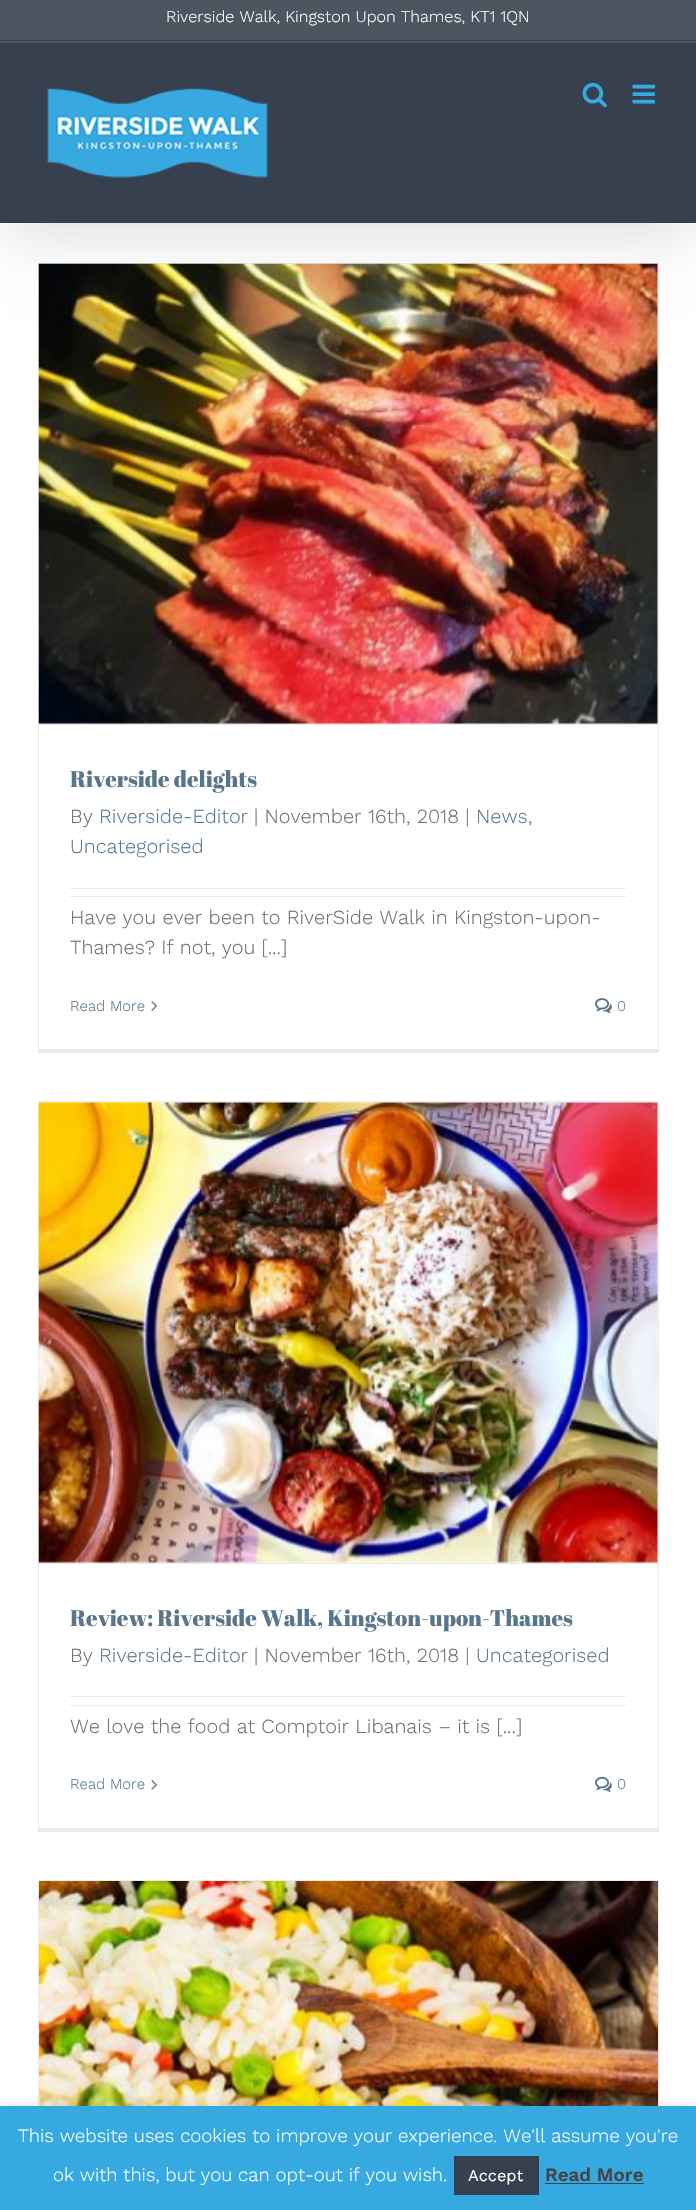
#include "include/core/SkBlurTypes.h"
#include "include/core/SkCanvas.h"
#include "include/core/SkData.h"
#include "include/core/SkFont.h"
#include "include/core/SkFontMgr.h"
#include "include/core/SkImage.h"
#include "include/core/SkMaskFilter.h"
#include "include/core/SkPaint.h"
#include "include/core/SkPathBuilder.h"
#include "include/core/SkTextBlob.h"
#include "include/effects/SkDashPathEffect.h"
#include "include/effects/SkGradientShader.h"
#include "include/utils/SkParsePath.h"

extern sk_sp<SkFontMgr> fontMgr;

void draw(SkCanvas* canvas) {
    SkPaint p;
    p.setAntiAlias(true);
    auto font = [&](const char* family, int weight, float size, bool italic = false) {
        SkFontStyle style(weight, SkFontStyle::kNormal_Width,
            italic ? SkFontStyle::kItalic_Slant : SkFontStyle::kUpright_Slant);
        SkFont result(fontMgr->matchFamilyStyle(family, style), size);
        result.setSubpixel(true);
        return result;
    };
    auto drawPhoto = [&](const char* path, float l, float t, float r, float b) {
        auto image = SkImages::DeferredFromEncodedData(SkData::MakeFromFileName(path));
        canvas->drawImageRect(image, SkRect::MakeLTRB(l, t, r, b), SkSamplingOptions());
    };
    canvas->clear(0xFFFFFFFF);
    {
        const struct { float l, t, r, b; SkColor color; } items[] = {
            {38, 263, 659, 264, 0xFFEBEAEA},
            {658, 263, 659, 1053, 0xFFEBEAEA},
            {38, 1049, 659, 1053, 0xFFEBEAEA},
            {38, 263, 39, 1053, 0xFFEBEAEA},
        };
        for (auto [l, t, r, b, color] : items) {
            p.setColor(color);
            canvas->drawRect(SkRect::MakeLTRB(l, t, r, b), p);
        }
    }
    drawPhoto("media/4.png", 38, 263, 658, 724);
    p.setColor(0x24000000);
    p.setMaskFilter(SkMaskFilter::MakeBlur(kNormal_SkBlurStyle, 31));
    canvas->drawRect(SkRect::MakeLTRB(3, 15, 694, 233), p);
    p.setMaskFilter(nullptr);
    {
        const struct { float l, t, r, b; SkColor color; } items[] = {
            {0, 0, 696, 43, 0xFF4D5560},
            {0, 43, 696, 223, 0xFF37404E},
            {0, 40, 696, 41, 0xFF37404E},
        };
        for (auto [l, t, r, b, color] : items) {
            p.setColor(color);
            canvas->drawRect(SkRect::MakeLTRB(l, t, r, b), p);
        }
    }
    auto font1 = font("Work Sans", 300, 16.25f);
    p.setColor(0xFFFFFFFF);
    canvas->drawString("Riverside Walk, Kingston Upon Thames, KT1 1QN", 166, 22, font1, p);
    drawPhoto("media/1.png", 47, 88, 268, 178);
    drawPhoto("media/2.png", 582, 82, 607, 108);
    drawPhoto("media/3.png", 632, 84, 655, 104);
    p.setColor(0xFFEBEAEA);
    canvas->drawRect(SkRect::MakeLTRB(39, 724, 658, 725), p);
    auto font2 = font("Abril Fatface", 400, 22.5f);
    p.setColor(0xFF57758B);
    canvas->drawString("Riverside delights", 70, 787, font2, p);
    auto font3 = font("Work Sans", 300, 20);
    p.setColor(0xFF6D6E70);
    canvas->drawString("By", 70, 823, font3, p);
    p.setColor(0xFF57758B);
    canvas->drawString("Riverside-Editor", 99, 823, font3, p);
    p.setColor(0xFF6D6E70);
    canvas->drawString("| November 16th, 2018 |", 254, 823, font3, p);
    p.setColor(0xFF57758B);
    canvas->drawString("News", 476, 823, font3, p);
    p.setColor(0xFF6D6E70);
    canvas->drawString(",", 528, 823, font3, p);
    p.setColor(0xFF57758B);
    canvas->drawString("Uncategorised", 70, 853, font3, p);
    p.setColor(0xFFEBEAEA);
    canvas->drawRect(SkRect::MakeLTRB(70, 888, 626, 889), p);
    canvas->drawRect(SkRect::MakeLTRB(70, 896, 626, 897), p);
    p.setColor(0xFF6D6E70);
    canvas->drawString("Have you ever been to RiverSide Walk in Kingston-upon-", 70, 924, font3, p);
    canvas->drawString("Thames? If not, you [...]", 70, 954, font3, p);
    auto font4 = font("Work Sans", 300, 15);
    p.setColor(0xFF57758B);
    canvas->drawString("Read More", 70, 1011, font4, p);
    drawPhoto("media/5.png", 151, 1001, 157, 1011);
    drawPhoto("media/6.png", 595, 998, 612, 1014);
    canvas->drawString("0", 617, 1011, font4, p);
    {
        const struct { float l, t, r, b; SkColor color; } items[] = {
            {38, 1101, 659, 1102, 0xFFEBEAEA},
            {658, 1101, 659, 1831, 0xFFEBEAEA},
            {38, 1828, 659, 1832, 0xFFEBEAEA},
            {38, 1101, 39, 1831, 0xFFEBEAEA},
            {39, 1563, 658, 1564, 0xFFEBEAEA},
        };
        for (auto [l, t, r, b, color] : items) {
            p.setColor(color);
            canvas->drawRect(SkRect::MakeLTRB(l, t, r, b), p);
        }
    }
    drawPhoto("media/7.png", 38, 1102, 658, 1563);
    p.setColor(0xFF57758B);
    canvas->drawString("Review: Riverside Walk, Kingston-upon-Thames", 70, 1626, font2, p);
    p.setColor(0xFF6D6E70);
    canvas->drawString("By", 70, 1662, font3, p);
    p.setColor(0xFF57758B);
    canvas->drawString("Riverside-Editor", 99, 1662, font3, p);
    p.setColor(0xFF6D6E70);
    canvas->drawString("| November 16th, 2018 |", 254, 1662, font3, p);
    p.setColor(0xFF57758B);
    canvas->drawString("Uncategorised", 476, 1662, font3, p);
    p.setColor(0xFFEBEAEA);
    canvas->drawRect(SkRect::MakeLTRB(70, 1696, 626, 1697), p);
    canvas->drawRect(SkRect::MakeLTRB(70, 1705, 626, 1706), p);
    p.setColor(0xFF6D6E70);
    canvas->drawString("We love the food at Comptoir Libanais – it is [...]", 70, 1733, font3, p);
    p.setColor(0xFF57758B);
    canvas->drawString("Read More", 70, 1789, font4, p);
    drawPhoto("media/8.png", 151, 1780, 157, 1790);
    drawPhoto("media/9.png", 595, 1776, 612, 1792);
    canvas->drawString("0", 617, 1789, font4, p);
    {
        const struct { float l, t, r, b; SkColor color; } items[] = {
            {38, 1880, 659, 1881, 0xFFEBEAEA},
            {658, 1880, 659, 2106, 0xFFEBEAEA},
            {38, 1880, 39, 2106, 0xFFEBEAEA},
        };
        for (auto [l, t, r, b, color] : items) {
            p.setColor(color);
            canvas->drawRect(SkRect::MakeLTRB(l, t, r, b), p);
        }
    }
    drawPhoto("media/10.png", 39, 1881, 658, 2106);
    p.setColor(0x4DACABAB);
    p.setMaskFilter(SkMaskFilter::MakeBlur(kNormal_SkBlurStyle, 6));
    canvas->drawRect(SkRect::MakeLTRB(0, 2105, 696, 2209), p);
    p.setMaskFilter(nullptr);
    p.setColor(0xFF36A9E1);
    canvas->drawRect(SkRect::MakeLTRB(0, 2106, 696, 2210), p);
    auto font5 = font("Work Sans", 300, 18.75f);
    p.setColor(0xFFFFFFFF);
    canvas->drawString("This website uses cookies to improve your experience. We'll assume you're", 18, 2142, font5, p);
    canvas->drawString("ok with this, but you can opt-out if you wish.", 53, 2181, font5, p);
    p.setColor(0xFF37404E);
    canvas->drawRect(SkRect::MakeLTRB(454, 2156, 539, 2195), p);
    auto font6 = font("Work Sans", 400, 16.25f);
    p.setColor(0xFFFFFFFF);
    canvas->drawString("Accept", 468, 2181, font6, p);
    auto font7 = font("Work Sans", 600, 18.75f);
    p.setColor(0xFF444444);
    canvas->drawString("Read More", 545, 2181, font7, p);
    canvas->drawRect(SkRect::MakeLTRB(545, 2183, 644, 2184), p);
}
